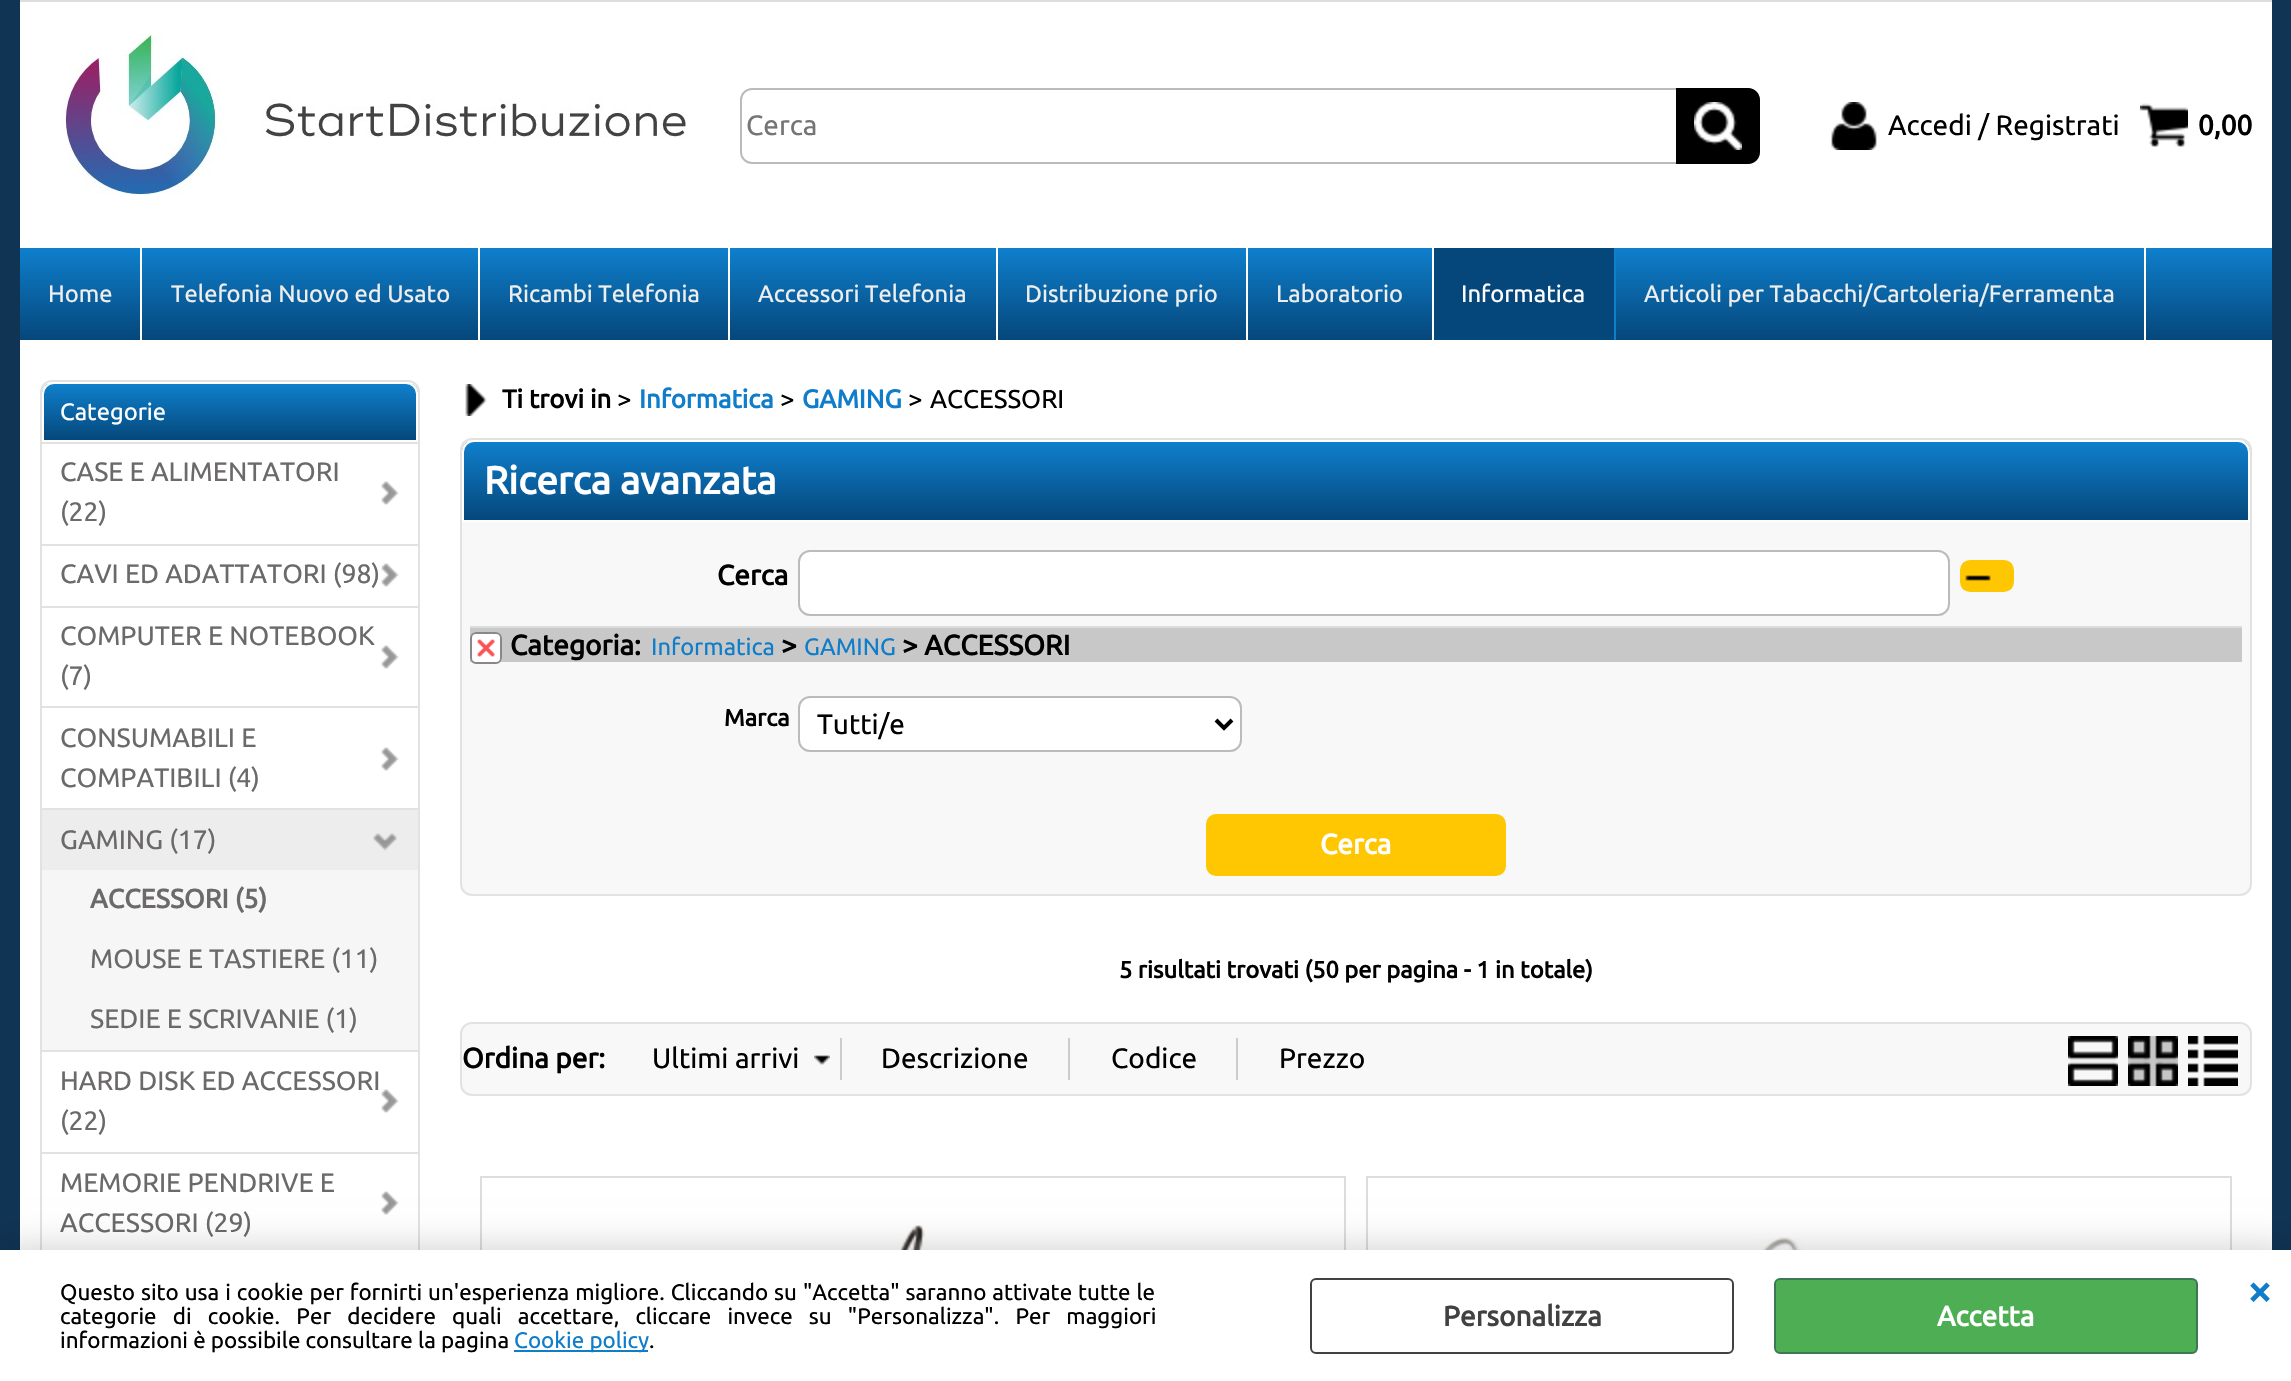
#include "include/core/SkBlurTypes.h"
#include "include/core/SkCanvas.h"
#include "include/core/SkData.h"
#include "include/core/SkFont.h"
#include "include/core/SkFontMgr.h"
#include "include/core/SkImage.h"
#include "include/core/SkMaskFilter.h"
#include "include/core/SkPaint.h"
#include "include/core/SkPathBuilder.h"
#include "include/core/SkTextBlob.h"
#include "include/effects/SkDashPathEffect.h"
#include "include/effects/SkGradientShader.h"
#include "include/utils/SkParsePath.h"

extern sk_sp<SkFontMgr> fontMgr;

void draw(SkCanvas* canvas) {
    SkPaint p;
    p.setAntiAlias(true);
    auto font = [&](const char* family, int weight, float size, bool italic = false) {
        SkFontStyle style(weight, SkFontStyle::kNormal_Width,
            italic ? SkFontStyle::kItalic_Slant : SkFontStyle::kUpright_Slant);
        SkFont result(fontMgr->matchFamilyStyle(family, style), size);
        result.setSubpixel(true);
        return result;
    };
    auto drawTracked = [&](const char* s, float x, float y, const SkFont& font, const SkPaint& ink, float letter, float word) {
        std::vector<SkGlyphID> glyphs(font.countText(s, strlen(s), SkTextEncoding::kUTF8));
        std::vector<float> xs(glyphs.size());
        font.textToGlyphs(s, strlen(s), SkTextEncoding::kUTF8, glyphs);
        font.getXPos(glyphs, xs, x);
        float extra = 0;
        for (size_t i = 0; i < glyphs.size(); i++) {
            xs[i] += extra;
            extra += letter + word * (glyphs[i] == font.unicharToGlyph(' '));
        }
        canvas->drawTextBlob(SkTextBlob::MakeFromPosHGlyphs(glyphs, xs, y, font), 0, 0, ink);
    };
    auto drawPhoto = [&](const char* path, float l, float t, float r, float b) {
        auto image = SkImages::DeferredFromEncodedData(SkData::MakeFromFileName(path));
        canvas->drawImageRect(image, SkRect::MakeLTRB(l, t, r, b), SkSamplingOptions());
    };
    canvas->clear(0xFF103454);
    p.setColor(0xFFFFFFFF);
    canvas->drawRect(SkRect::MakeLTRB(20, 2, 2272, 248), p);
    p.setColor(0xFFDDDDDD);
    canvas->drawRect(SkRect::MakeLTRB(20, 0, 2272, 2), p);
    drawPhoto("media/1.png", 55, 34, 688, 195);
    p.setStyle(SkPaint::kStroke_Style);
    p.setStrokeWidth(2);
    p.setColor(0xFFBBBBBB);
    canvas->drawRoundRect(SkRect::MakeLTRB(741, 89, 1759, 163), 11, 11, p);
    auto font1 = font("Ubuntu", 400, 28);
    p.setStyle(SkPaint::kFill_Style);
    p.setColor(0xFF757575);
    canvas->drawString("Cerca", 746, 135, font1, p);
    p.setColor(0xFF000000);
    canvas->drawPath(SkPathBuilder().moveTo(1676, 88).lineTo(1748, 88).cubicTo(1754.5f, 88, 1760, 93.5f, 1760, 100).lineTo(1760, 152).cubicTo(1760, 158.5f, 1754.5f, 164, 1748, 164).lineTo(1676, 164).close().detach(), p);
    drawPhoto("media/2.png", 1694, 102, 1742, 150);
    drawPhoto("media/3.png", 1831, 102, 1877, 150);
    canvas->drawString("Accedi / Registrati", 1888, 135, font1, p);
    drawPhoto("media/4.png", 2140, 103, 2188, 148);
    auto font2 = font("Ubuntu", 700, 28);
    canvas->drawString("0,00", 2198, 135, font2, p);
    {
        const SkColor colors[] = {0xFF0F7FCC, 0xFF05477B};
        const float stops[] = {0, 1};
        const SkPoint ends[] = {{1146, 248}, {1146, 340}};
        p.setShader(SkGradientShader::MakeLinear(ends, colors, stops, 2, SkTileMode::kClamp));
        p.setAlpha(255);
    }
    canvas->drawRect(SkRect::MakeLTRB(20, 248, 2272, 340), p);
    p.setShader(nullptr);
    p.setColor(0xFFFFFFFF);
    canvas->drawRect(SkRect::MakeLTRB(140, 248, 142, 340), p);
    auto font3 = font("Ubuntu", 400, 23.75f);
    p.setColor(0xFFEEEEEE);
    canvas->drawString("Home", 48, 302, font3, p);
    p.setColor(0xFFFFFFFF);
    canvas->drawRect(SkRect::MakeLTRB(478, 248, 480, 340), p);
    p.setColor(0xFFEEEEEE);
    canvas->drawString("Telefonia Nuovo ed Usato", 171, 302, font3, p);
    p.setColor(0xFFFFFFFF);
    canvas->drawRect(SkRect::MakeLTRB(728, 248, 730, 340), p);
    p.setColor(0xFFEEEEEE);
    canvas->drawString("Ricambi Telefonia", 508, 302, font3, p);
    p.setColor(0xFFFFFFFF);
    canvas->drawRect(SkRect::MakeLTRB(996, 248, 998, 340), p);
    p.setColor(0xFFEEEEEE);
    canvas->drawString("Accessori Telefonia", 758, 302, font3, p);
    p.setColor(0xFFFFFFFF);
    canvas->drawRect(SkRect::MakeLTRB(1246, 248, 1248, 340), p);
    p.setColor(0xFFEEEEEE);
    canvas->drawString("Distribuzione prio", 1025, 302, font3, p);
    p.setColor(0xFFFFFFFF);
    canvas->drawRect(SkRect::MakeLTRB(1432, 248, 1434, 340), p);
    p.setColor(0xFFEEEEEE);
    canvas->drawString("Laboratorio", 1276, 302, font3, p);
    p.setColor(0xFF05477B);
    canvas->drawRect(SkRect::MakeLTRB(1434, 248, 1614, 337), p);
    p.setColor(0xFF0F7FCC);
    canvas->drawRect(SkRect::MakeLTRB(1614, 248, 1616, 340), p);
    p.setColor(0xFFFFFFFF);
    canvas->drawString("Informatica", 1461, 302, font3, p);
    canvas->drawRect(SkRect::MakeLTRB(2144, 248, 2146, 340), p);
    p.setColor(0xFFEEEEEE);
    canvas->drawString("Articoli per Tabacchi/Cartoleria/Ferramenta", 1644, 302, font3, p);
    p.setColor(0xFFFFFFFF);
    canvas->drawRect(SkRect::MakeLTRB(20, 340, 2272, 1250), p);
    p.setStyle(SkPaint::kStroke_Style);
    p.setColor(0xFFE2E2E2);
    canvas->drawRoundRect(SkRect::MakeLTRB(41, 381, 419, 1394), 11, 11, p);
    canvas->save();
    canvas->clipPath(SkPathBuilder().moveTo(54, 382).lineTo(406, 382).cubicTo(412.5f, 382, 418, 387.5f, 418, 394).lineTo(418, 442).lineTo(42, 442).lineTo(42, 394).cubicTo(42, 387.5f, 47.5f, 382, 54, 382).close().detach(), true);
    p.setStyle(SkPaint::kFill_Style);
    {
        const SkColor colors[] = {0xFF0F7FCC, 0xFF05477B};
        const float stops[] = {0, 1};
        const SkPoint ends[] = {{230, 384}, {230, 440}};
        p.setShader(SkGradientShader::MakeLinear(ends, colors, stops, 2, SkTileMode::kClamp));
        p.setAlpha(255);
    }
    canvas->drawRect(SkRect::MakeLTRB(42, 384, 418, 440), p);
    canvas->restore();
    p.setStyle(SkPaint::kStroke_Style);
    p.setShader(nullptr);
    p.setColor(0xFFFFFFFF);
    canvas->drawPath(SkPathBuilder().moveTo(54, 383).lineTo(406, 383).cubicTo(412, 383, 417, 388, 417, 394).lineTo(417, 441).lineTo(43, 441).lineTo(43, 394).cubicTo(43, 388, 48, 383, 54, 383).close().detach(), p);
    p.setStyle(SkPaint::kFill_Style);
    canvas->drawString("Categorie", 60, 420, font3, p);
    p.setColor(0xFFE2E2E2);
    canvas->drawRect(SkRect::MakeLTRB(42, 442, 418, 444), p);
    drawPhoto("media/5.png", 381, 481, 399, 505);
    auto font4 = font("Ubuntu", 400, 26.6f);
    p.setColor(0xFF6B6969);
    canvas->drawString("CASE E ALIMENTATORI", 60, 481, font4, p);
    canvas->drawString("(22)", 60, 521, font4, p);
    p.setColor(0xFFE2E2E2);
    canvas->drawRect(SkRect::MakeLTRB(42, 544, 418, 546), p);
    drawPhoto("media/5.png", 381, 563, 399, 587);
    p.setColor(0xFF6B6969);
    canvas->drawString("CAVI ED ADATTATORI (98)", 60, 583, font4, p);
    p.setColor(0xFFE2E2E2);
    canvas->drawRect(SkRect::MakeLTRB(42, 606, 418, 608), p);
    drawPhoto("media/5.png", 381, 645, 399, 669);
    p.setColor(0xFF6B6969);
    canvas->drawString("COMPUTER E NOTEBOOK", 60, 645, font4, p);
    canvas->drawString("(7)", 60, 685, font4, p);
    p.setColor(0xFFE2E2E2);
    canvas->drawRect(SkRect::MakeLTRB(42, 706, 418, 708), p);
    drawPhoto("media/5.png", 381, 747, 399, 771);
    p.setColor(0xFF6B6969);
    canvas->drawString("CONSUMABILI E", 60, 747, font4, p);
    canvas->drawString("COMPATIBILI (4)", 60, 787, font4, p);
    p.setColor(0xFFE2E2E2);
    canvas->drawRect(SkRect::MakeLTRB(42, 808, 418, 810), p);
    p.setColor(0xFFEDEDED);
    canvas->drawRect(SkRect::MakeLTRB(42, 810, 418, 870), p);
    drawPhoto("media/6.png", 373, 833, 397, 851);
    p.setColor(0xFF6B6969);
    canvas->drawString("GAMING (17)", 60, 849, font4, p);
    p.setColor(0xFFF6F6F6);
    canvas->drawRect(SkRect::MakeLTRB(42, 870, 418, 1050), p);
    auto font5 = font("Ubuntu", 700, 26.6f);
    p.setColor(0xFF6B6969);
    canvas->drawString("ACCESSORI (5)", 90, 908, font5, p);
    canvas->drawString("MOUSE E TASTIERE (11)", 90, 968, font4, p);
    canvas->drawString("SEDIE E SCRIVANIE (1)", 90, 1028, font4, p);
    p.setColor(0xFFE2E2E2);
    canvas->drawRect(SkRect::MakeLTRB(42, 1050, 418, 1052), p);
    drawPhoto("media/5.png", 381, 1089, 399, 1113);
    p.setColor(0xFF6B6969);
    canvas->drawString("HARD DISK ED ACCESSORI", 60, 1090, font4, p);
    canvas->drawString("(22)", 60, 1130, font4, p);
    p.setColor(0xFFE2E2E2);
    canvas->drawRect(SkRect::MakeLTRB(42, 1152, 418, 1154), p);
    drawPhoto("media/5.png", 381, 1191, 399, 1215);
    p.setColor(0xFF6B6969);
    canvas->drawString("MEMORIE PENDRIVE E", 60, 1192, font4, p);
    canvas->drawString("ACCESSORI (29)", 60, 1232, font4, p);
    drawPhoto("media/7.png", 465, 384, 487, 416);
    auto font6 = font("Ubuntu", 700, 25.75f);
    p.setColor(0xFF000000);
    canvas->drawString("Ti trovi in", 502, 408, font6, p);
    auto font7 = font("Ubuntu", 400, 25.75f);
    canvas->drawString(">", 617, 408, font7, p);
    p.setColor(0xFF0F7DCA);
    canvas->drawString("Informatica", 639, 408, font6, p);
    p.setColor(0xFF000000);
    canvas->drawString(">", 780, 408, font7, p);
    p.setColor(0xFF0F7DCA);
    canvas->drawString("GAMING", 802, 408, font6, p);
    p.setColor(0xFF000000);
    canvas->drawString(">", 908, 408, font7, p);
    canvas->drawString("ACCESSORI", 930, 408, font7, p);
    p.setColor(0xFFF8F8F8);
    canvas->drawRoundRect(SkRect::MakeLTRB(461, 439, 2251, 895), 11, 11, p);
    p.setStyle(SkPaint::kStroke_Style);
    p.setColor(0xFFE2E2E2);
    canvas->drawRoundRect(SkRect::MakeLTRB(461, 439, 2251, 895), 11, 11, p);
    canvas->save();
    canvas->clipPath(SkPathBuilder().moveTo(474, 440).lineTo(2238, 440).cubicTo(2244.5f, 440, 2250, 445.5f, 2250, 452).lineTo(2250, 522).lineTo(462, 522).lineTo(462, 452).cubicTo(462, 445.5f, 467.5f, 440, 474, 440).close().detach(), true);
    p.setStyle(SkPaint::kFill_Style);
    {
        const SkColor colors[] = {0xFF0F7FCC, 0xFF05477B};
        const float stops[] = {0, 1};
        const SkPoint ends[] = {{1356, 442}, {1356, 520}};
        p.setShader(SkGradientShader::MakeLinear(ends, colors, stops, 2, SkTileMode::kClamp));
        p.setAlpha(255);
    }
    canvas->drawRect(SkRect::MakeLTRB(462, 442, 2250, 520), p);
    canvas->restore();
    p.setStyle(SkPaint::kStroke_Style);
    p.setShader(nullptr);
    p.setColor(0xFFFFFFFF);
    canvas->drawPath(SkPathBuilder().moveTo(474, 441).lineTo(2238, 441).cubicTo(2244, 441, 2249, 446, 2249, 452).lineTo(2249, 521).lineTo(463, 521).lineTo(463, 452).cubicTo(463, 446, 468, 441, 474, 441).close().detach(), p);
    auto font8 = font("Ubuntu", 700, 38.75f);
    p.setStyle(SkPaint::kFill_Style);
    canvas->drawString("Ricerca avanzata", 484, 494, font8, p);
    p.setColor(0xFF000000);
    canvas->drawString("Cerca", 717, 585, font2, p);
    p.setColor(0xFFFFFFFF);
    canvas->drawRoundRect(SkRect::MakeLTRB(799, 551, 1949, 615), 11, 11, p);
    p.setStyle(SkPaint::kStroke_Style);
    p.setColor(0xFFBBBBBB);
    canvas->drawRoundRect(SkRect::MakeLTRB(799, 551, 1949, 615), 11, 11, p);
    drawPhoto("media/8.png", 1962, 562, 2012, 590);
    p.setColor(0xFFFFC602);
    canvas->drawRoundRect(SkRect::MakeLTRB(1961, 561, 2013, 591), 9, 9, p);
    p.setStyle(SkPaint::kFill_Style);
    p.setColor(0xFFDDDDDD);
    canvas->drawRect(SkRect::MakeLTRB(470, 626, 2242, 628), p);
    p.setColor(0xFFC8C8C8);
    canvas->drawRect(SkRect::MakeLTRB(470, 628, 2242, 662), p);
    p.setColor(0xFFFFFFFF);
    canvas->drawRoundRect(SkRect::MakeLTRB(470, 632, 502, 664), 6, 6, p);
    drawPhoto("media/9.png", 477, 639, 495, 657);
    p.setStyle(SkPaint::kStroke_Style);
    p.setColor(0xFF888888);
    canvas->drawRoundRect(SkRect::MakeLTRB(471, 633, 501, 663), 5, 5, p);
    p.setStyle(SkPaint::kFill_Style);
    p.setColor(0xFF000000);
    canvas->drawString("Categoria:", 510, 655, font2, p);
    auto font9 = font("Ubuntu", 400, 23.7f);
    p.setColor(0xFF0F7DCA);
    canvas->drawString("Informatica", 651, 655, font9, p);
    p.setColor(0xFF000000);
    canvas->drawString(">", 781, 655, font2, p);
    p.setColor(0xFF0F7DCA);
    canvas->drawString("GAMING", 804, 655, font9, p);
    p.setColor(0xFF000000);
    canvas->drawString("> ACCESSORI", 902, 655, font2, p);
    auto font10 = font("Ubuntu", 700, 23.7f);
    canvas->drawString("Marca", 724, 726, font10, p);
    p.setColor(0xFFFFFFFF);
    canvas->drawRoundRect(SkRect::MakeLTRB(799, 697, 1241, 751), 11, 11, p);
    p.setStyle(SkPaint::kStroke_Style);
    p.setColor(0xFFBBBBBB);
    canvas->drawRoundRect(SkRect::MakeLTRB(799, 697, 1241, 751), 11, 11, p);
    p.setStrokeWidth(4);
    p.setColor(0xFF000000);
    canvas->drawPath(SkPathBuilder().moveTo(1216, 720).lineTo(1224, 728).lineTo(1232, 720).detach(), p);
    p.setStyle(SkPaint::kFill_Style);
    canvas->drawString("Tutti/e", 817, 734, font1, p);
    p.setColor(0xFFFFC602);
    canvas->drawRoundRect(SkRect::MakeLTRB(1207, 815, 1505, 875), 9, 9, p);
    p.setStyle(SkPaint::kStroke_Style);
    p.setStrokeWidth(2);
    canvas->drawRoundRect(SkRect::MakeLTRB(1207, 815, 1505, 875), 9, 9, p);
    p.setStyle(SkPaint::kFill_Style);
    p.setColor(0xFFFFFFFF);
    canvas->drawString("Cerca", 1320, 854, font2, p);
    p.setColor(0xFF000000);
    canvas->drawString("5 risultati trovati (50 per pagina - 1 in totale)", 1119, 978, font10, p);
    p.setColor(0xFFF8F8F8);
    canvas->drawRoundRect(SkRect::MakeLTRB(461, 1023, 2251, 1095), 11, 11, p);
    p.setStyle(SkPaint::kStroke_Style);
    p.setColor(0xFFE2E2E2);
    canvas->drawRoundRect(SkRect::MakeLTRB(461, 1023, 2251, 1095), 11, 11, p);
    p.setStyle(SkPaint::kFill_Style);
    p.setColor(0xFF000000);
    canvas->drawString("Ordina per:", 462, 1068, font2, p);
    drawPhoto("media/10.png", 814, 1055, 830, 1065);
    p.setColor(0xFFCCCCCC);
    canvas->drawRect(SkRect::MakeLTRB(840, 1038, 842, 1080), p);
    p.setColor(0xFF000000);
    canvas->drawString("Ultimi arrivi", 652, 1068, font1, p);
    p.setColor(0xFFCCCCCC);
    canvas->drawRect(SkRect::MakeLTRB(1068, 1038, 1070, 1080), p);
    p.setColor(0xFF000000);
    canvas->drawString("Descrizione", 881, 1068, font1, p);
    p.setColor(0xFFCCCCCC);
    canvas->drawRect(SkRect::MakeLTRB(1236, 1038, 1238, 1080), p);
    p.setColor(0xFF000000);
    canvas->drawString("Codice", 1111, 1068, font1, p);
    canvas->drawString("Prezzo", 1279, 1068, font1, p);
    drawPhoto("media/11.png", 2068, 1036, 2118, 1086);
    p.setColor(0xFFC6C6C6);
    canvas->drawRect(SkRect::MakeLTRB(2128, 1036, 2178, 1086), p);
    drawPhoto("media/12.png", 2128, 1036, 2178, 1086);
    drawPhoto("media/13.png", 2188, 1036, 2238, 1086);
    p.setStyle(SkPaint::kStroke_Style);
    p.setColor(0xFFDDDDDD);
    canvas->drawRect(SkRect::MakeLTRB(481, 1177, 1345, 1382), p);
    drawPhoto("media/14.png", 810, 1225, 987, 1250);
    canvas->drawRect(SkRect::MakeLTRB(1367, 1177, 2231, 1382), p);
    drawPhoto("media/15.png", 1689, 1237, 1908, 1250);
    p.setStyle(SkPaint::kFill_Style);
    p.setColor(0x33000000);
    p.setMaskFilter(SkMaskFilter::MakeBlur(kNormal_SkBlurStyle, 18));
    canvas->drawRect(SkRect::MakeLTRB(0, 1250, 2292, 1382), p);
    p.setMaskFilter(nullptr);
    p.setColor(0xFFFFFFFF);
    canvas->drawRect(SkRect::MakeLTRB(0, 1250, 2291, 1381), p);
    auto font11 = font("Ubuntu", 400, 22.4f);
    p.setColor(0xFF000000);
    drawTracked("Questo sito usa i cookie per fornirti un'esperienza migliore. Cliccando su \"Accetta\" saranno attivate tutte le", 60, 1300, font11, p, 0, 0.75f);
    drawTracked("categorie di cookie. Per decidere quali accettare, cliccare invece su \"Personalizza\". Per maggiori", 60, 1324, font11, p, 0, 11);
    canvas->drawString("informazioni è possibile consultare la pagina", 60, 1348, font11, p);
    p.setColor(0xFF0F7DCA);
    canvas->drawRect(SkRect::MakeLTRB(514, 1350, 648, 1352), p);
    canvas->drawString("Cookie policy", 514, 1348, font11, p);
    p.setColor(0xFF000000);
    canvas->drawString(".", 649, 1348, font11, p);
    auto font12 = font("Ubuntu", 700, 44);
    p.setColor(0xFF0F7DCA);
    canvas->drawString("×", 2247, 1306, font12, p);
    p.setStyle(SkPaint::kStroke_Style);
    p.setColor(0xFF424141);
    canvas->drawRoundRect(SkRect::MakeLTRB(1311, 1279, 1733, 1353), 5, 5, p);
    p.setStyle(SkPaint::kFill_Style);
    canvas->drawString("Personalizza", 1443, 1326, font2, p);
    p.setColor(0xFF4EAE54);
    canvas->drawRoundRect(SkRect::MakeLTRB(1775, 1279, 2197, 1353), 5, 5, p);
    p.setStyle(SkPaint::kStroke_Style);
    p.setColor(0xFF3F7755);
    canvas->drawRoundRect(SkRect::MakeLTRB(1775, 1279, 2197, 1353), 5, 5, p);
    p.setStyle(SkPaint::kFill_Style);
    p.setColor(0xFFFFFFFF);
    canvas->drawString("Accetta", 1937, 1326, font2, p);
}
